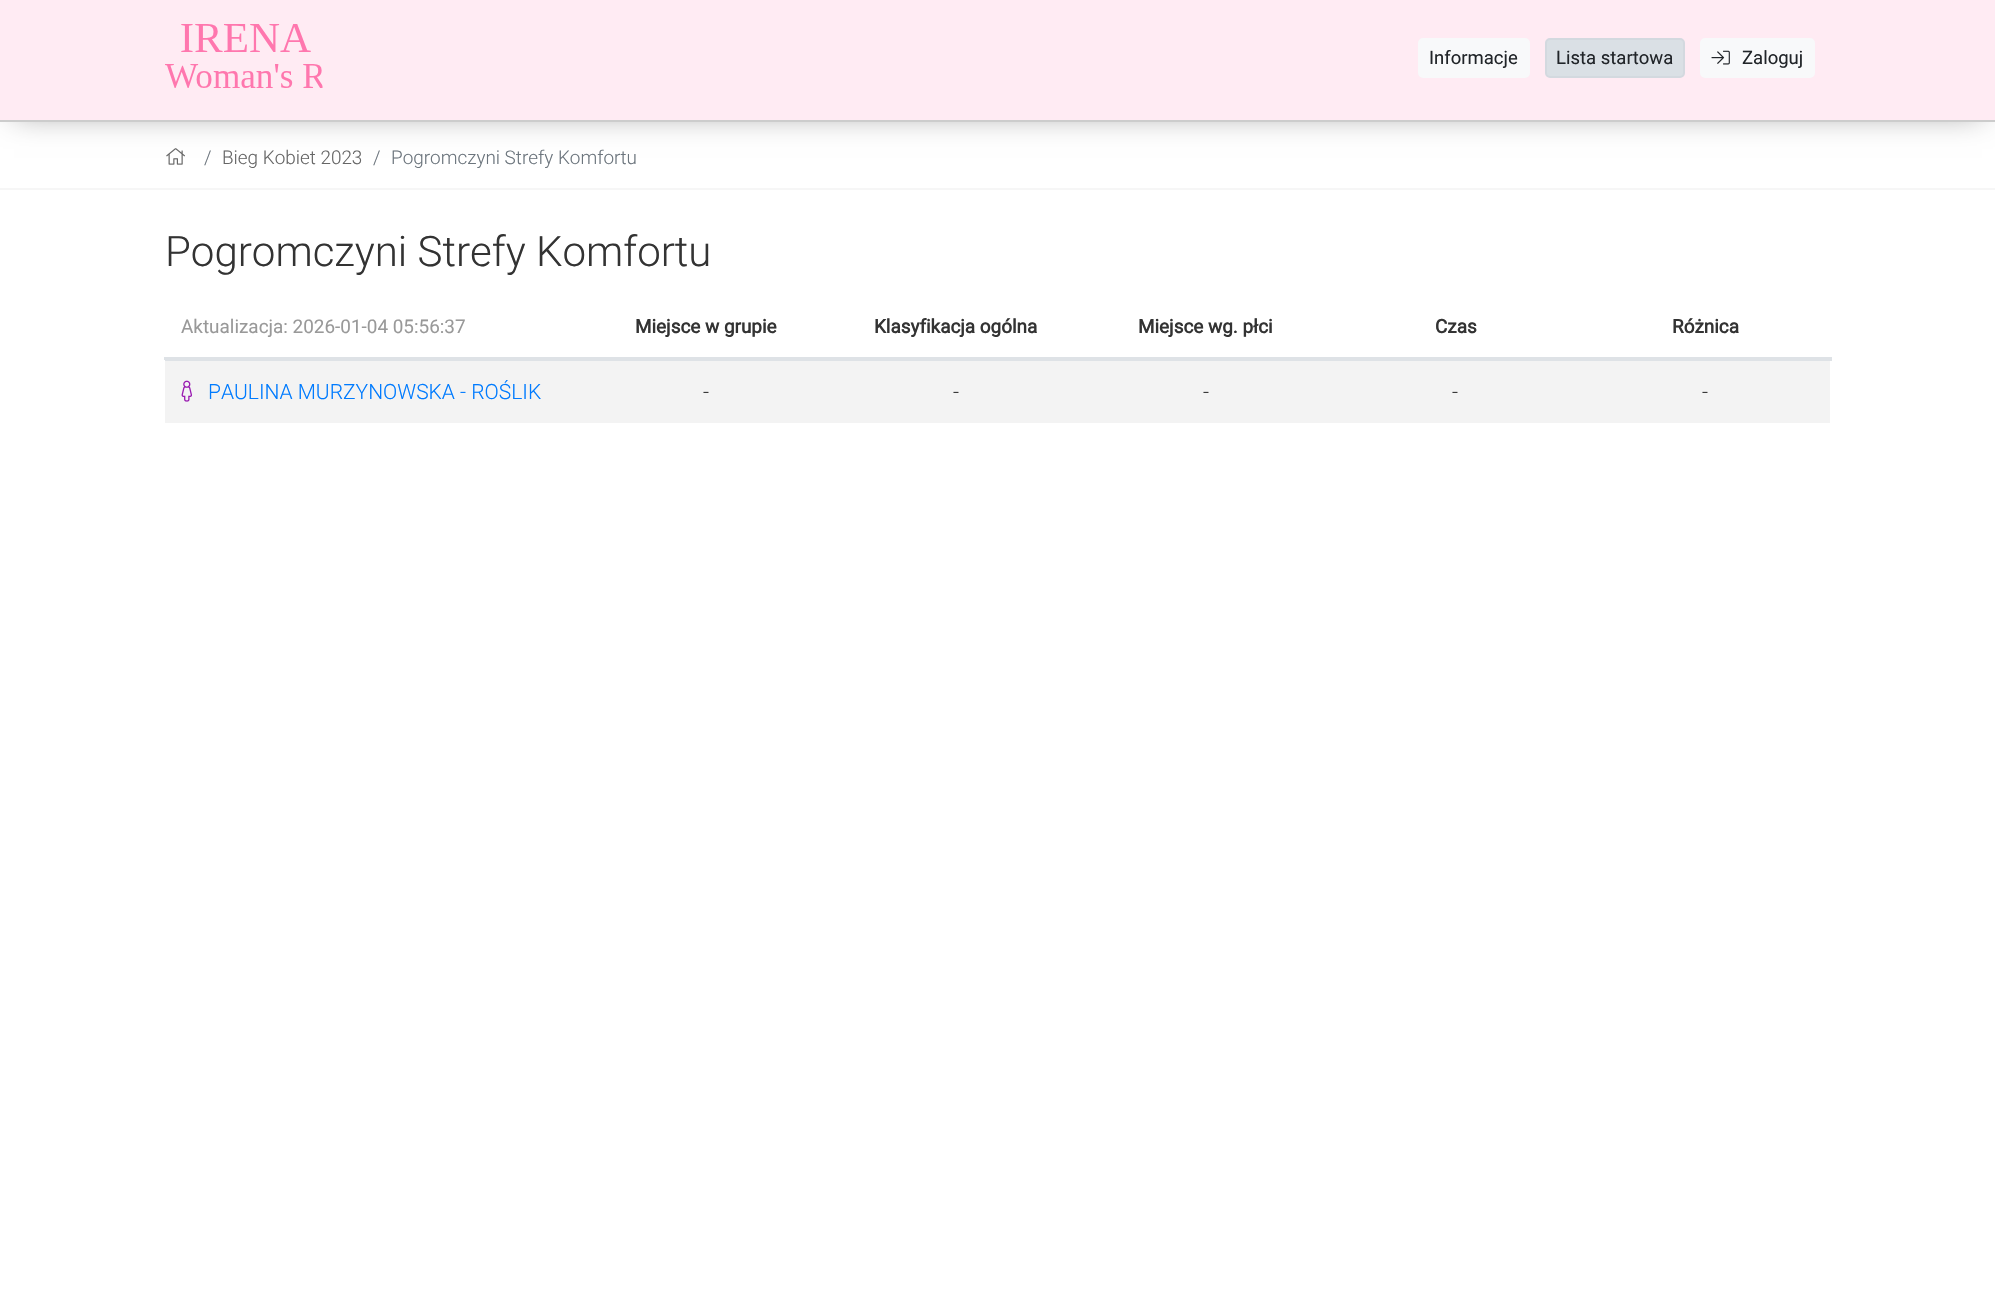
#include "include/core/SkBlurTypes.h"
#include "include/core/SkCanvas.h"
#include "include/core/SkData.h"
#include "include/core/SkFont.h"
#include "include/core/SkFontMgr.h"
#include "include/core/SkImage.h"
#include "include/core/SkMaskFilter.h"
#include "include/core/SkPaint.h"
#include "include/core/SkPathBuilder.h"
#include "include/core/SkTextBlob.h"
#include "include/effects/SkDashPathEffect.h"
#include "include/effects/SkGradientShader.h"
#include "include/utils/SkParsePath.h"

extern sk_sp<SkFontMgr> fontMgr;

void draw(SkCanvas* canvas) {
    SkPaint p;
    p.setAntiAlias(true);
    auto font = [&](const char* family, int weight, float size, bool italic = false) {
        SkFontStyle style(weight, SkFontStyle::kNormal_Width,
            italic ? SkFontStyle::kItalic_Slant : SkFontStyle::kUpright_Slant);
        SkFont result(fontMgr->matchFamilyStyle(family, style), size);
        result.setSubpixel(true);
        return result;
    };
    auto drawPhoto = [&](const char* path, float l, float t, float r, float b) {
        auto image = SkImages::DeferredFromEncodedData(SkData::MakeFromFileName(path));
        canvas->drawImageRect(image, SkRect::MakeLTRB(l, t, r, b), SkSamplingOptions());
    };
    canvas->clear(0xFFFFFFFF);
    p.setColor(0xFF949494);
    p.setMaskFilter(SkMaskFilter::MakeBlur(kNormal_SkBlurStyle, 15));
    canvas->drawRect(SkRect::MakeLTRB(14, 18, 1982, 113), p);
    p.setMaskFilter(nullptr);
    p.setColor(0xFFFFEBF3);
    canvas->drawRect(SkRect::MakeLTRB(0, 0, 1995, 120), p);
    p.setColor(0xFFCCCCCC);
    canvas->drawRect(SkRect::MakeLTRB(0, 120, 1995, 122), p);
    drawPhoto("media/1.png", 165, 24, 323, 88);
    p.setColor(0xFFF8F9FA);
    canvas->drawRoundRect(SkRect::MakeLTRB(1419, 39, 1529, 77), 4, 4, p);
    p.setStyle(SkPaint::kStroke_Style);
    p.setStrokeWidth(2);
    canvas->drawRoundRect(SkRect::MakeLTRB(1419, 39, 1529, 77), 4, 4, p);
    auto font1 = font("Roboto", 400, 18.5f);
    p.setStyle(SkPaint::kFill_Style);
    p.setColor(0xFF212529);
    canvas->drawString("Informacje", 1429, 64, font1, p);
    p.setColor(0xFFDAE0E5);
    canvas->drawRoundRect(SkRect::MakeLTRB(1546, 39, 1684, 77), 4, 4, p);
    p.setStyle(SkPaint::kStroke_Style);
    p.setColor(0xFFD3D9DF);
    canvas->drawRoundRect(SkRect::MakeLTRB(1546, 39, 1684, 77), 4, 4, p);
    p.setStyle(SkPaint::kFill_Style);
    p.setColor(0xFF212529);
    canvas->drawString("Lista startowa", 1556, 64, font1, p);
    p.setColor(0xFFF8F9FA);
    canvas->drawRoundRect(SkRect::MakeLTRB(1701, 39, 1814, 77), 4, 4, p);
    p.setStyle(SkPaint::kStroke_Style);
    canvas->drawRoundRect(SkRect::MakeLTRB(1701, 39, 1814, 77), 4, 4, p);
    drawPhoto("media/2.png", 1711, 50, 1730, 65);
    p.setStyle(SkPaint::kFill_Style);
    p.setColor(0xFF212529);
    canvas->drawString("Zaloguj", 1742, 64, font1, p);
    p.setColor(0xFFF6F6F6);
    canvas->drawRect(SkRect::MakeLTRB(0, 188, 1995, 190), p);
    drawPhoto("media/3.png", 166, 148, 185, 165);
    auto font2 = font("Roboto", 300, 18.9f);
    p.setColor(0xFF6C757D);
    canvas->drawString("/", 204, 164, font2, p);
    p.setColor(0xFF666666);
    canvas->drawString("Bieg Kobiet 2023", 222, 164, font2, p);
    p.setColor(0xFF6C757D);
    canvas->drawString("/", 373, 164, font2, p);
    canvas->drawString("Pogromczyni Strefy Komfortu", 391, 164, font2, p);
    auto font3 = font("Roboto", 300, 42);
    p.setColor(0xFF333333);
    canvas->drawString("Pogromczyni Strefy Komfortu", 165, 266, font3, p);
    auto font4 = font("Roboto", 400, 18.9f);
    p.setColor(0xFF999999);
    canvas->drawString("Aktualizacja: 2026-01-04 05:56:37", 181, 333, font4, p);
    auto font5 = font("Roboto", 700, 18.9f);
    p.setColor(0xFF333333);
    {
        const struct { const char* s; float x, y; } items[] = {
            {"Miejsce w grupie", 635, 333},
            {"Klasyfikacja ogólna", 874, 333},
            {"Miejsce wg. płci", 1138, 333},
            {"Czas", 1435, 333},
        };
        for (auto [s, x, y] : items) {
            canvas->drawString(s, x, y, font5, p);
        }
    }
    p.setColor(0xFFDEE2E6);
    canvas->drawRect(SkRect::MakeLTRB(164, 357, 1832, 360), p);
    p.setColor(0xFF333333);
    canvas->drawString("Różnica", 1672, 333, font5, p);
    p.setColor(0xFFF3F3F3);
    canvas->drawRect(SkRect::MakeLTRB(165, 361, 1830, 423), p);
    drawPhoto("media/4.png", 181, 380, 192, 402);
    auto font6 = font("Roboto", 300, 21);
    p.setColor(0xFF007BFF);
    canvas->drawString("PAULINA MURZYNOWSKA - ROŚLIK", 208, 399, font6, p);
    p.setColor(0xFF333333);
    {
        const struct { const char* s; float x, y; } items[] = {
            {"-", 703, 399},
            {"-", 953, 399},
            {"-", 1203, 399},
            {"-", 1452, 399},
        };
        for (auto [s, x, y] : items) {
            canvas->drawString(s, x, y, font6, p);
        }
    }
    p.setColor(0xFFDEE2E6);
    canvas->drawRect(SkRect::MakeLTRB(165, 360, 1832, 361), p);
    p.setColor(0xFF333333);
    canvas->drawString("-", 1702, 399, font6, p);
}
